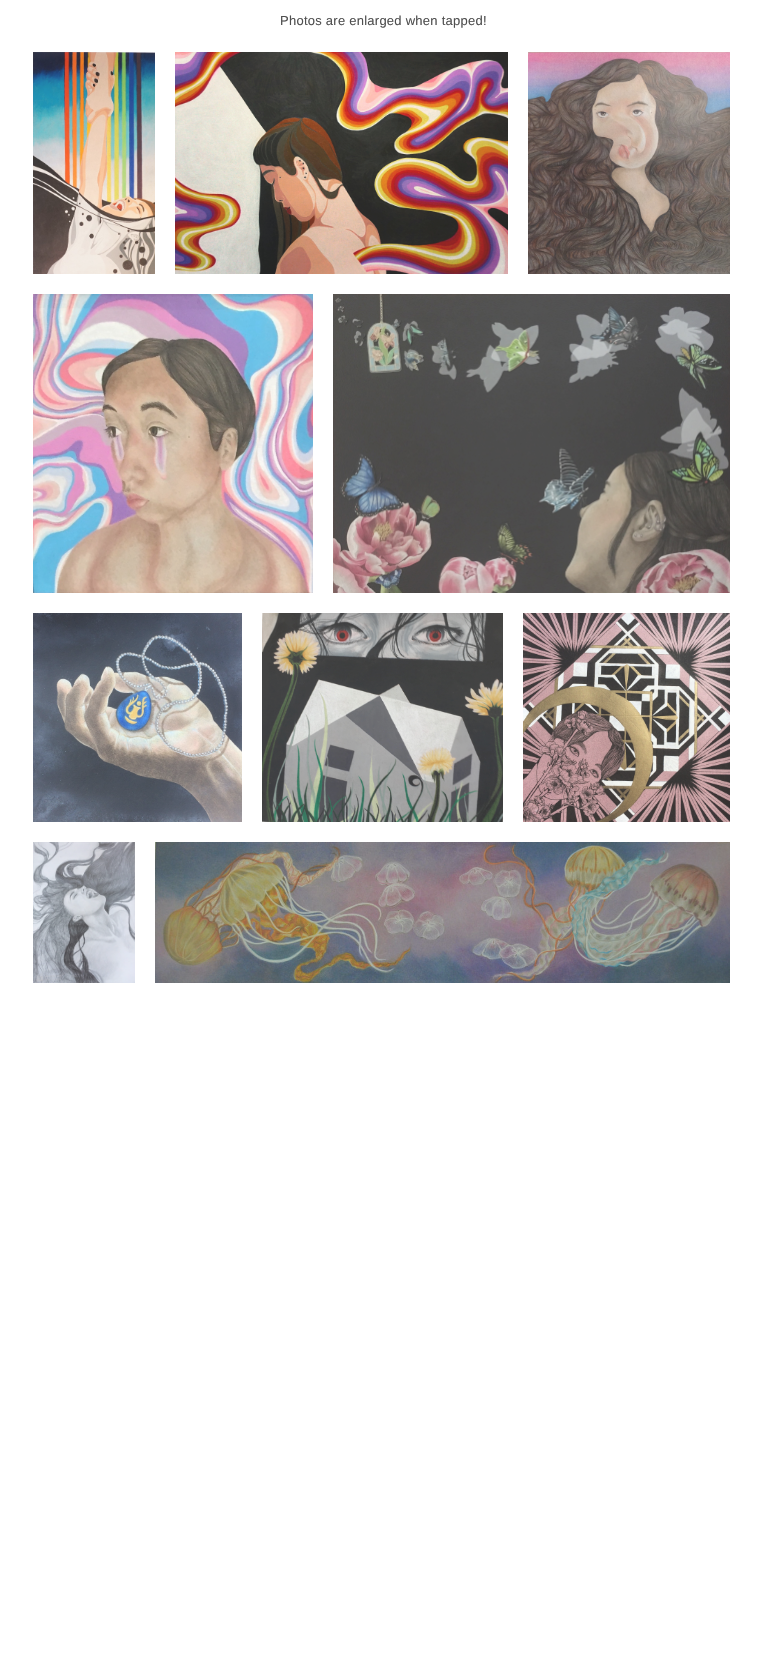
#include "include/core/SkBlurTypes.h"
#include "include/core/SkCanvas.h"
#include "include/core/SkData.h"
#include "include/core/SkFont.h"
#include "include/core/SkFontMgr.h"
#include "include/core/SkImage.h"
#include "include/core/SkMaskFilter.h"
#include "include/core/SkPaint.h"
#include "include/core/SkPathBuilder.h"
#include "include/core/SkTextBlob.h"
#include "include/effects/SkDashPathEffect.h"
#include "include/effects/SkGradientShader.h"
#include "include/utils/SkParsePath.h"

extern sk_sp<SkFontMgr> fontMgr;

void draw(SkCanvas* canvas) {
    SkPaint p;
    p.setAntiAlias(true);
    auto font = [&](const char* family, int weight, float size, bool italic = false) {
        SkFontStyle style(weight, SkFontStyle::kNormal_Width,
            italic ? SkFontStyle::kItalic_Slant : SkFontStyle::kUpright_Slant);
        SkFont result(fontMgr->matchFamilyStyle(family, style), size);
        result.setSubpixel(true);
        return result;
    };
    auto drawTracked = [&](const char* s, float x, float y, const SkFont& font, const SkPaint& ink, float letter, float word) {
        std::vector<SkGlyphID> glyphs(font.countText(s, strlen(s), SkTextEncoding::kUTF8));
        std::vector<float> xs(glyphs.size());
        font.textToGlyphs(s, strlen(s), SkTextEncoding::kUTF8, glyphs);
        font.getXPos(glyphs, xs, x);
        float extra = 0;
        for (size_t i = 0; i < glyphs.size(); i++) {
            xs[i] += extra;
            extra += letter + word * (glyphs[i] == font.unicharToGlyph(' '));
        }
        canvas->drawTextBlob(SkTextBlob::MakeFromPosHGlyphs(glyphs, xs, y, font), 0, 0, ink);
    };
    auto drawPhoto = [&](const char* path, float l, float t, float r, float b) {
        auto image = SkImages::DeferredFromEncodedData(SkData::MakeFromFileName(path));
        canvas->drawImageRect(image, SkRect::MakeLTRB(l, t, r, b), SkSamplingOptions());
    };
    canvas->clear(0xFFFFFFFF);
    auto font1 = font("Liberation Sans", 400, 13);
    p.setColor(0xFF4F4F4F);
    drawTracked("Photos are enlarged when tapped!", 280, 25, font1, p, 0.25f, 0);
    drawPhoto("media/1.png", 33, 52, 155, 274);
    drawPhoto("media/2.png", 175, 52, 508, 274);
    drawPhoto("media/3.png", 528, 52, 730, 274);
    drawPhoto("media/4.png", 33, 294, 313, 593);
    drawPhoto("media/5.png", 333, 294, 730, 593);
    drawPhoto("media/6.png", 33, 613, 242, 822);
    drawPhoto("media/7.png", 262, 613, 503, 822);
    drawPhoto("media/8.png", 523, 613, 730, 822);
    drawPhoto("media/9.png", 33, 842, 135, 983);
    drawPhoto("media/10.png", 155, 842, 730, 983);
}
